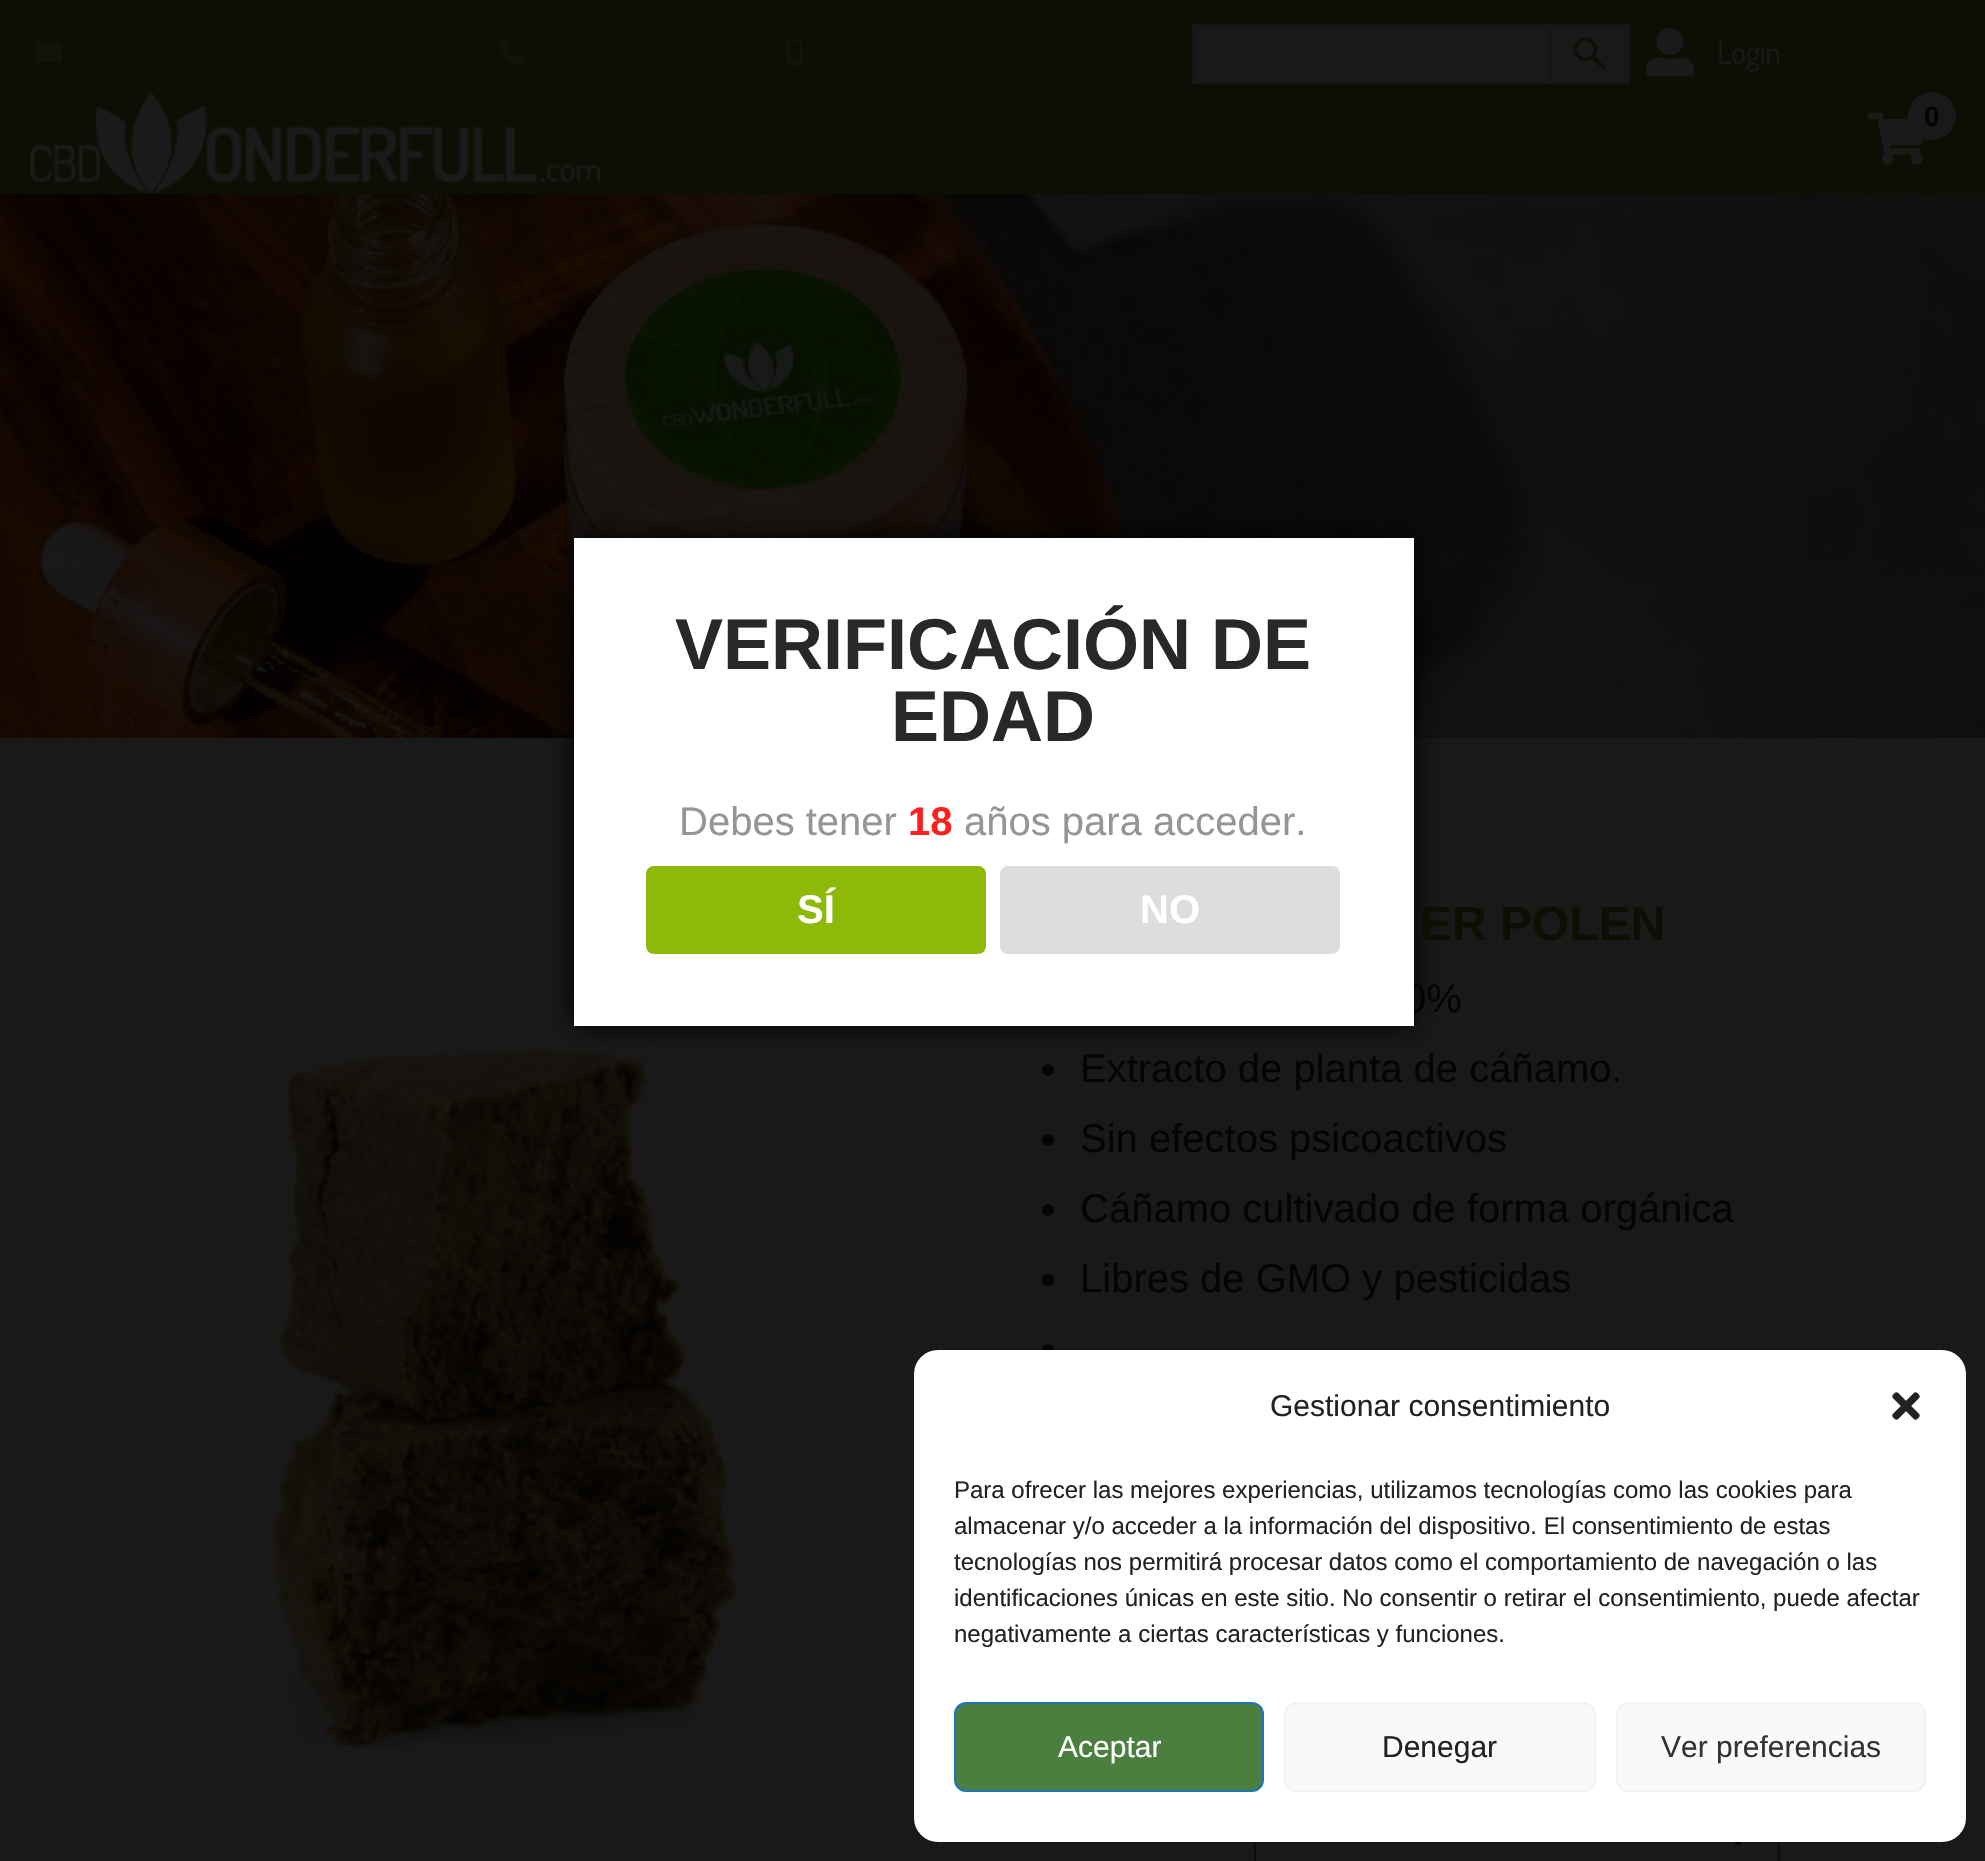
#include "include/core/SkBlurTypes.h"
#include "include/core/SkCanvas.h"
#include "include/core/SkData.h"
#include "include/core/SkFont.h"
#include "include/core/SkFontMgr.h"
#include "include/core/SkImage.h"
#include "include/core/SkMaskFilter.h"
#include "include/core/SkPaint.h"
#include "include/core/SkPathBuilder.h"
#include "include/core/SkTextBlob.h"
#include "include/effects/SkDashPathEffect.h"
#include "include/effects/SkGradientShader.h"
#include "include/utils/SkParsePath.h"

extern sk_sp<SkFontMgr> fontMgr;

void draw(SkCanvas* canvas) {
    SkPaint p;
    p.setAntiAlias(true);
    auto font = [&](const char* family, int weight, float size, bool italic = false) {
        SkFontStyle style(weight, SkFontStyle::kNormal_Width,
            italic ? SkFontStyle::kItalic_Slant : SkFontStyle::kUpright_Slant);
        SkFont result(fontMgr->matchFamilyStyle(family, style), size);
        result.setSubpixel(true);
        return result;
    };
    auto drawTracked = [&](const char* s, float x, float y, const SkFont& font, const SkPaint& ink, float letter, float word) {
        std::vector<SkGlyphID> glyphs(font.countText(s, strlen(s), SkTextEncoding::kUTF8));
        std::vector<float> xs(glyphs.size());
        font.textToGlyphs(s, strlen(s), SkTextEncoding::kUTF8, glyphs);
        font.getXPos(glyphs, xs, x);
        float extra = 0;
        for (size_t i = 0; i < glyphs.size(); i++) {
            xs[i] += extra;
            extra += letter + word * (glyphs[i] == font.unicharToGlyph(' '));
        }
        canvas->drawTextBlob(SkTextBlob::MakeFromPosHGlyphs(glyphs, xs, y, font), 0, 0, ink);
    };
    auto drawPhoto = [&](const char* path, float l, float t, float r, float b) {
        auto image = SkImages::DeferredFromEncodedData(SkData::MakeFromFileName(path));
        canvas->drawImageRect(image, SkRect::MakeLTRB(l, t, r, b), SkSamplingOptions());
    };
    canvas->clear(0xFF191919);
    p.setColor(0xFF0C0F04);
    canvas->drawRect(SkRect::MakeLTRB(0, 0, 1985, 194), p);
    drawPhoto("media/1.png", 36, 42, 62, 62);
    drawPhoto("media/2.png", 500, 39, 526, 66);
    drawPhoto("media/3.png", 786, 39, 803, 66);
    p.setColor(0xFF191919);
    canvas->drawRect(SkRect::MakeLTRB(1193, 25, 1551, 83), p);
    p.setStyle(SkPaint::kStroke_Style);
    p.setStrokeWidth(2);
    p.setColor(0xFF161616);
    canvas->drawRect(SkRect::MakeLTRB(1193, 25, 1551, 83), p);
    p.setStyle(SkPaint::kFill_Style);
    {
        const struct { float l, t, r, b; SkColor color; } items[] = {
            {1552, 26, 1628, 82, 0xFF191919},
            {1552, 24, 1630, 26, 0xFF161616},
            {1628, 24, 1630, 84, 0xFF161616},
            {1552, 82, 1630, 84, 0xFF161616},
        };
        for (auto [l, t, r, b, color] : items) {
            p.setColor(color);
            canvas->drawRect(SkRect::MakeLTRB(l, t, r, b), p);
        }
    }
    drawPhoto("media/4.png", 1573, 37, 1606, 70);
    drawPhoto("media/5.png", 1646, 28, 1694, 76);
    auto font1 = font("Dosis", 400, 32);
    p.setColor(0xFF191919);
    drawTracked("Login", 1717, 64, font1, p, -0.5f, 0);
    drawPhoto("media/6.png", 30, 92, 600, 194);
    drawPhoto("media/7.png", 1868, 112, 1923, 165);
    canvas->drawCircle(1932, 116, 24, p);
    auto font2 = font("Liberation Sans", 700, 28);
    p.setColor(0xFF040404);
    canvas->drawString("0", 1924, 126, font2, p);
    drawPhoto("media/8.png", 0, 194, 1985, 738);
    drawPhoto("media/9.png", 206, 1039, 755, 1762);
    canvas->drawCircle(1048, 1070, 6, p);
    p.setColor(0xFF000000);
    p.setMaskFilter(SkMaskFilter::MakeBlur(kNormal_SkBlurStyle, 15));
    canvas->drawRect(SkRect::MakeLTRB(574, 538, 1414, 1026), p);
    p.setMaskFilter(nullptr);
    auto font3 = font("Liberation Sans", 400, 40);
    p.setColor(0xFF040404);
    canvas->drawString("0%", 1404, 1012, font3, p);
    p.setColor(0xFFFFFFFF);
    canvas->drawRect(SkRect::MakeLTRB(574, 538, 1414, 1026), p);
    auto font4 = font("Liberation Sans", 700, 72);
    p.setColor(0xFF282828);
    canvas->drawString("VERIFICACIÓN DE", 675, 669, font4, p);
    canvas->drawString("EDAD", 891, 741, font4, p);
    p.setColor(0xFF959595);
    canvas->drawString("Debes tener", 679, 835, font3, p);
    auto font5 = font("Liberation Sans", 700, 40);
    p.setColor(0xFFFF1F1F);
    canvas->drawString("18", 908, 835, font5, p);
    p.setColor(0xFF959595);
    canvas->drawString("años para acceder.", 964, 835, font3, p);
    p.setColor(0xFF8EB908);
    canvas->drawRoundRect(SkRect::MakeLTRB(646, 866, 986, 954), 8, 8, p);
    p.setColor(0xFFFFFFFF);
    canvas->drawString("SÍ", 797, 923, font5, p);
    p.setColor(0xFFDDDDDD);
    canvas->drawRoundRect(SkRect::MakeLTRB(1000, 866, 1340, 954), 8, 8, p);
    p.setColor(0xFFFFFFFF);
    canvas->drawString("NO", 1140, 923, font5, p);
    auto font6 = font("Liberation Sans", 700, 48);
    p.setColor(0xFF0C0F04);
    canvas->drawString("ER POLEN", 1420, 940, font6, p);
    p.setColor(0xFF040404);
    canvas->drawString("Extracto de planta de cáñamo.", 1080, 1082, font3, p);
    canvas->drawCircle(1048, 1140, 6, p);
    canvas->drawString("Sin efectos psicoactivos", 1080, 1152, font3, p);
    canvas->drawCircle(1048, 1210, 6, p);
    canvas->drawString("Cáñamo cultivado de forma orgánica", 1080, 1222, font3, p);
    canvas->drawCircle(1048, 1280, 6, p);
    canvas->drawString("Libres de GMO y pesticidas", 1080, 1292, font3, p);
    canvas->drawCircle(1048, 1350, 6, p);
    p.setStyle(SkPaint::kStroke_Style);
    p.setStrokeWidth(2.7f);
    p.setStrokeCap(SkPaint::kRound_Cap);
    p.setStrokeJoin(SkPaint::kRound_Join);
    p.setColor(0xFF000000);
    canvas->drawPath(SkPathBuilder().moveTo(1730, 1836).lineTo(1738, 1844).lineTo(1746, 1836).detach(), p);
    p.setStrokeWidth(2);
    p.setStrokeCap(SkPaint::kButt_Cap);
    p.setStrokeJoin(SkPaint::kMiter_Join);
    p.setColor(0xFF0C0C0C);
    canvas->drawRect(SkRect::MakeLTRB(1255, 1803, 1779, 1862), p);
    p.setStyle(SkPaint::kFill_Style);
    p.setColor(0xFFFFFFFF);
    canvas->drawRoundRect(SkRect::MakeLTRB(914, 1350, 1966, 1842), 24, 24, p);
    auto font7 = font("Liberation Sans", 400, 30);
    p.setColor(0xFF222222);
    canvas->drawString("Gestionar consentimiento", 1270, 1416, font7, p);
    drawPhoto("media/10.png", 1892, 1392, 1920, 1420);
    auto font8 = font("Liberation Sans", 400, 24);
    {
        const struct { const char* s; float x, y; } items[] = {
            {"Para ofrecer las mejores experiencias, utilizamos tecnologías como las cookies para", 954, 1498},
            {"almacenar y/o acceder a la información del dispositivo. El consentimiento de estas", 954, 1534},
            {"tecnologías nos permitirá procesar datos como el comportamiento de navegación o las", 954, 1570},
            {"identificaciones únicas en este sitio. No consentir o retirar el consentimiento, puede afectar", 954, 1606},
            {"negativamente a ciertas características y funciones.", 954, 1642},
        };
        for (auto [s, x, y] : items) {
            canvas->drawString(s, x, y, font8, p);
        }
    }
    p.setColor(0xFF4B7F3F);
    canvas->drawRoundRect(SkRect::MakeLTRB(955, 1703, 1263, 1791), 11, 11, p);
    p.setStyle(SkPaint::kStroke_Style);
    p.setColor(0xFF1E73BE);
    canvas->drawRoundRect(SkRect::MakeLTRB(955, 1703, 1263, 1791), 11, 11, p);
    p.setStyle(SkPaint::kFill_Style);
    p.setColor(0xFFFFFFFF);
    canvas->drawString("Aceptar", 1058, 1757, font7, p);
    p.setColor(0xFFF9F9F9);
    canvas->drawRoundRect(SkRect::MakeLTRB(1285, 1703, 1595, 1791), 11, 11, p);
    p.setStyle(SkPaint::kStroke_Style);
    p.setColor(0xFFF2F2F2);
    canvas->drawRoundRect(SkRect::MakeLTRB(1285, 1703, 1595, 1791), 11, 11, p);
    p.setStyle(SkPaint::kFill_Style);
    p.setColor(0xFF222222);
    canvas->drawString("Denegar", 1382, 1757, font7, p);
    p.setColor(0xFFF9F9F9);
    canvas->drawRoundRect(SkRect::MakeLTRB(1617, 1703, 1925, 1791), 11, 11, p);
    p.setStyle(SkPaint::kStroke_Style);
    p.setColor(0xFFF2F2F2);
    canvas->drawRoundRect(SkRect::MakeLTRB(1617, 1703, 1925, 1791), 11, 11, p);
    p.setStyle(SkPaint::kFill_Style);
    p.setColor(0xFF333333);
    canvas->drawString("Ver preferencias", 1661, 1757, font7, p);
}
